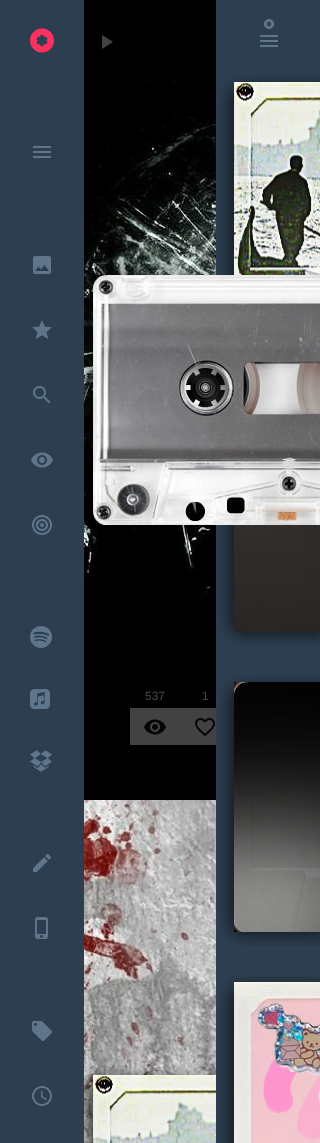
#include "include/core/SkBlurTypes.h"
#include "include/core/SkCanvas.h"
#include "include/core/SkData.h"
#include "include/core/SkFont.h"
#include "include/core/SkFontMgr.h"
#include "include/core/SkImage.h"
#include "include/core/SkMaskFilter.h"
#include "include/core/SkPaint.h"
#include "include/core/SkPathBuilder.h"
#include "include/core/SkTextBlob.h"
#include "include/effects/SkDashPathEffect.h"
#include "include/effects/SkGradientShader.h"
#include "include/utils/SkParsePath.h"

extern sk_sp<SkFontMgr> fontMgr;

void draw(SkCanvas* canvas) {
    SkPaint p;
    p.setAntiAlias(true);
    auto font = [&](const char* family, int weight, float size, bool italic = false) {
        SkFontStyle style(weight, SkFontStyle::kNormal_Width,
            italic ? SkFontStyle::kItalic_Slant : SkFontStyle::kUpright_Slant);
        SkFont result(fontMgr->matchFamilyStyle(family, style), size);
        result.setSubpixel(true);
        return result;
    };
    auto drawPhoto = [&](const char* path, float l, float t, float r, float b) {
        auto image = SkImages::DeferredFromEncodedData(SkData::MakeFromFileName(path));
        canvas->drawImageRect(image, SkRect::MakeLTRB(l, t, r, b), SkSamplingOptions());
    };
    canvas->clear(0xFF2C3E50);
    drawPhoto("media/16.png", 84, 0, 216, 800);
    drawPhoto("media/17.png", 84, 266, 216, 541);
    drawPhoto("media/1.png", 93, 275, 320, 525);
    drawPhoto("media/2.png", 30, 28, 54, 53);
    drawPhoto("media/3.png", 33, 146, 51, 158);
    drawPhoto("media/4.png", 33, 256, 51, 274);
    drawPhoto("media/5.png", 32, 320, 52, 339);
    drawPhoto("media/6.png", 33, 386, 51, 404);
    drawPhoto("media/7.png", 31, 452, 53, 468);
    drawPhoto("media/8.png", 32, 515, 52, 535);
    drawPhoto("media/9.png", 30, 626, 52, 648);
    drawPhoto("media/10.png", 30, 689, 50, 709);
    drawPhoto("media/11.png", 30, 750, 52, 772);
    drawPhoto("media/12.png", 33, 854, 51, 872);
    drawPhoto("media/13.png", 35, 917, 48, 939);
    drawPhoto("media/14.png", 32, 1021, 52, 1041);
    drawPhoto("media/15.png", 32, 1086, 52, 1106);
    p.setColor(0xFF424242);
    canvas->drawPath(SkPathBuilder().moveTo(102, 35).lineTo(113, 42).lineTo(102, 49).close().detach(), p);
    auto font1 = font("Liberation Sans", 400, 12);
    canvas->drawString("537", 145, 700, font1, p);
    canvas->drawRect(SkRect::MakeLTRB(130, 708, 216, 744), p);
    drawPhoto("media/18.png", 144, 719, 166, 735);
    canvas->drawString("1", 202, 700, font1, p);
    drawPhoto("media/19.png", 195, 718, 215, 736);
    canvas->drawRect(SkRect::MakeLTRB(130, 744, 216, 745), p);
    drawPhoto("media/20.png", 84, 800, 216, 1143);
    drawPhoto("media/21.png", 84, 1066, 216, 1143);
    drawPhoto("media/22.png", 93, 1075, 216, 1143);
    drawPhoto("media/23.png", 264, 19, 274, 29);
    drawPhoto("media/3.png", 260, 35, 278, 47);
    drawPhoto("media/24.png", 219, 75, 320, 275);
    drawPhoto("media/25.png", 234, 82, 320, 275);
    drawPhoto("media/26.png", 219, 525, 320, 646);
    drawPhoto("media/27.png", 234, 525, 320, 632);
    drawPhoto("media/28.png", 219, 675, 320, 946);
    drawPhoto("media/29.png", 234, 682, 320, 932);
    drawPhoto("media/30.png", 219, 975, 320, 1143);
    drawPhoto("media/31.png", 234, 982, 320, 1143);
}
